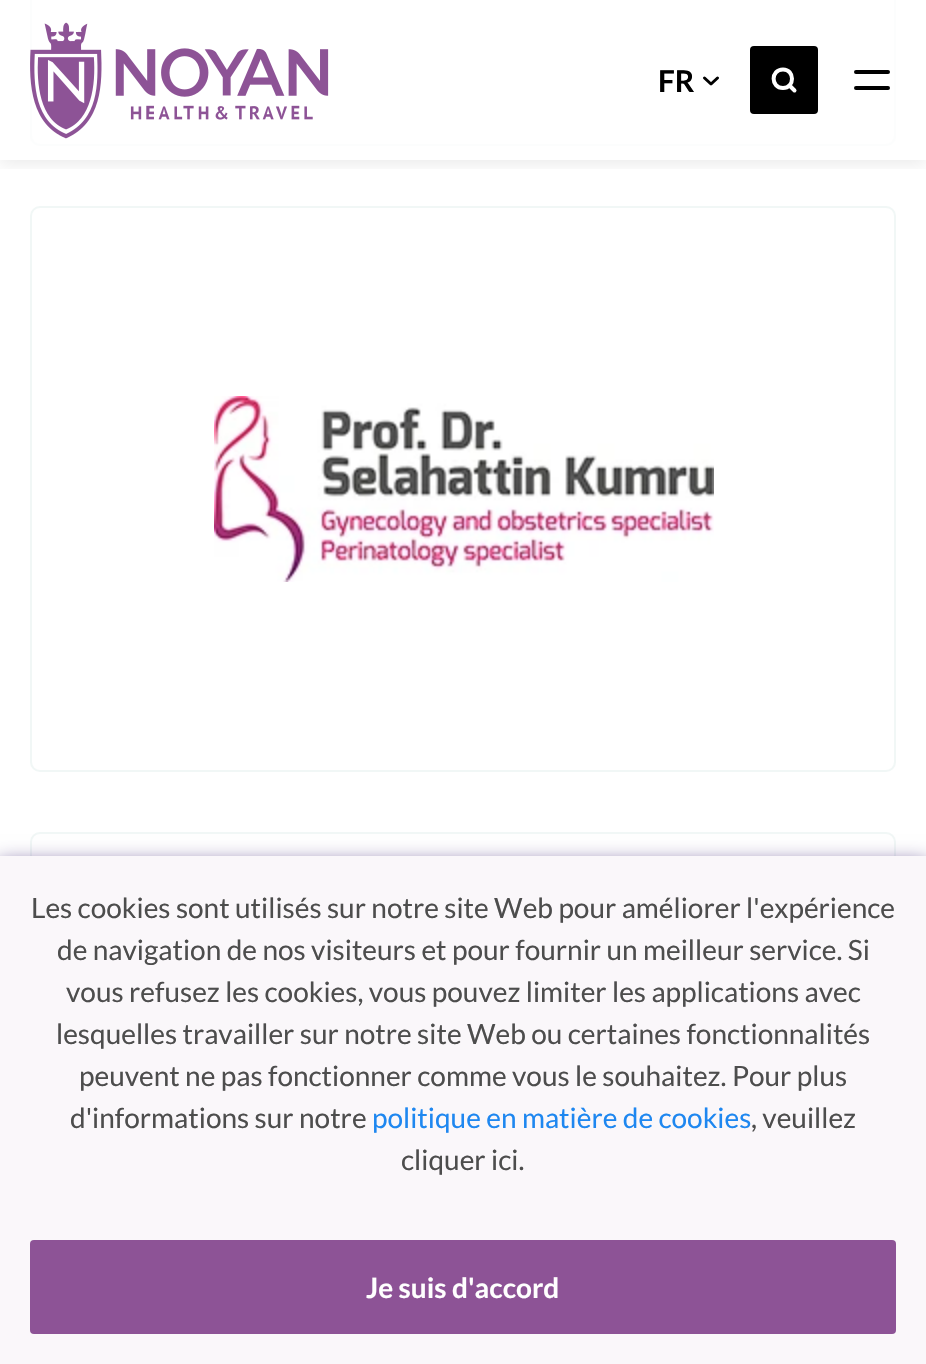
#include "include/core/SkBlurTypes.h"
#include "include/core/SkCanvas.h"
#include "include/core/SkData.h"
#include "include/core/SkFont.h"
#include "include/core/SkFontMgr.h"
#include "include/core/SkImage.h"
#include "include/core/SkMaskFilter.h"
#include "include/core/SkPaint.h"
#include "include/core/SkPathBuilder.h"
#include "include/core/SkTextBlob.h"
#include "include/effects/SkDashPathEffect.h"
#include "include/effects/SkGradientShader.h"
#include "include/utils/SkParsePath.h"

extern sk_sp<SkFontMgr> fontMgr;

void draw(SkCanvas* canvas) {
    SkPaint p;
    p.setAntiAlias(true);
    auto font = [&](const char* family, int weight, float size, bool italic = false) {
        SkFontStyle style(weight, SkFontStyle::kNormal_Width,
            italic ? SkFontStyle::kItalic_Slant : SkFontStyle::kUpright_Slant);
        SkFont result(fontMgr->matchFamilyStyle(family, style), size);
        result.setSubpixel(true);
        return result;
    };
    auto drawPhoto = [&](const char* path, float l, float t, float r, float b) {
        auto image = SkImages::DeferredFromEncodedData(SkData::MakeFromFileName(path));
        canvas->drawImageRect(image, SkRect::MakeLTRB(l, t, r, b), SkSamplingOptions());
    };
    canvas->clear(0xFFFFFFFF);
    p.setStyle(SkPaint::kStroke_Style);
    p.setStrokeWidth(2);
    p.setColor(0xFFFCFDFD);
    canvas->drawRoundRect(SkRect::MakeLTRB(31, -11, 895, 145), 9, 9, p);
    p.setColor(0xFFF1F7F6);
    canvas->drawRoundRect(SkRect::MakeLTRB(31, 207, 895, 771), 9, 9, p);
    drawPhoto("media/1.png", 214, 396, 714, 582);
    canvas->drawRoundRect(SkRect::MakeLTRB(31, 833, 895, 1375), 9, 9, p);
    canvas->save();
    canvas->clipRect(SkRect::MakeLTRB(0, 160, 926, 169));
    p.setStyle(SkPaint::kFill_Style);
    p.setColor(0x14000000);
    p.setMaskFilter(SkMaskFilter::MakeBlur(kNormal_SkBlurStyle, 8));
    canvas->drawRect(SkRect::MakeLTRB(0, 4, 926, 164), p);
    p.setMaskFilter(nullptr);
    canvas->restore();
    drawPhoto("media/2.png", 30, 22, 329, 139);
    auto font1 = font("Lato", 700, 30);
    p.setColor(0xFF000000);
    canvas->drawString("FR", 658, 92, font1, p);
    p.setStyle(SkPaint::kStroke_Style);
    p.setStrokeWidth(3);
    p.setStrokeCap(SkPaint::kRound_Cap);
    p.setStrokeJoin(SkPaint::kRound_Join);
    canvas->drawPath(SkPathBuilder().moveTo(704.5f, 78).lineTo(711, 84).lineTo(717.5f, 78).detach(), p);
    p.setStyle(SkPaint::kFill_Style);
    canvas->drawRoundRect(SkRect::MakeLTRB(750, 46, 818, 114), 4, 4, p);
    p.setStyle(SkPaint::kStroke_Style);
    p.setStrokeWidth(4);
    p.setColor(0xFFFFFFFF);
    canvas->drawPath(SkPathBuilder().moveTo(783, 88).cubicTo(795, 88, 795, 69.5f, 783, 69.5f).cubicTo(770.5f, 69.5f, 770.5f, 88, 783, 88).close().moveTo(794.5f, 90.5f).lineTo(789.5f, 85.5f).detach(), p);
    p.setColor(0xFF000000);
    canvas->drawPath(SkPathBuilder().moveTo(856, 72).lineTo(888, 72).moveTo(856, 88).lineTo(888, 88).detach(), p);
    p.setStyle(SkPaint::kFill_Style);
    p.setColor(0xFF4D3581);
    p.setMaskFilter(SkMaskFilter::MakeBlur(kNormal_SkBlurStyle, 10));
    canvas->drawRect(SkRect::MakeLTRB(-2, 864, 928, 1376), p);
    p.setMaskFilter(nullptr);
    p.setColor(0xFFFAF7FA);
    canvas->drawRect(SkRect::MakeLTRB(0, 856, 926, 1364), p);
    auto font2 = font("Lato", 400, 28);
    p.setColor(0xFF4D4D4D);
    {
        const struct { const char* s; float x, y; } items[] = {
            {"Les cookies sont utilisés sur notre site Web pour améliorer l'expérience", 31, 918},
            {"de navigation de nos visiteurs et pour fournir un meilleur service. Si", 57, 960},
            {"vous refusez les cookies, vous pouvez limiter les applications avec", 66, 1002},
            {"lesquelles travailler sur notre site Web ou certaines fonctionnalités", 56, 1044},
            {"peuvent ne pas fonctionner comme vous le souhaitez. Pour plus", 79, 1086},
            {"d'informations sur notre", 70, 1128},
        };
        for (auto [s, x, y] : items) {
            canvas->drawString(s, x, y, font2, p);
        }
    }
    p.setColor(0xFF1E87F0);
    canvas->drawString("politique en matière de cookies", 372, 1128, font2, p);
    p.setColor(0xFF4D4D4D);
    canvas->drawString(", veuillez", 751, 1128, font2, p);
    canvas->drawString("cliquer ici.", 401, 1170, font2, p);
    p.setColor(0xFF8D5396);
    canvas->drawRoundRect(SkRect::MakeLTRB(30, 1240, 896, 1334), 4, 4, p);
    auto font3 = font("Lato", 700, 28);
    p.setColor(0xFFFFFFFF);
    canvas->drawString("Je suis d'accord", 366, 1298, font3, p);
}
